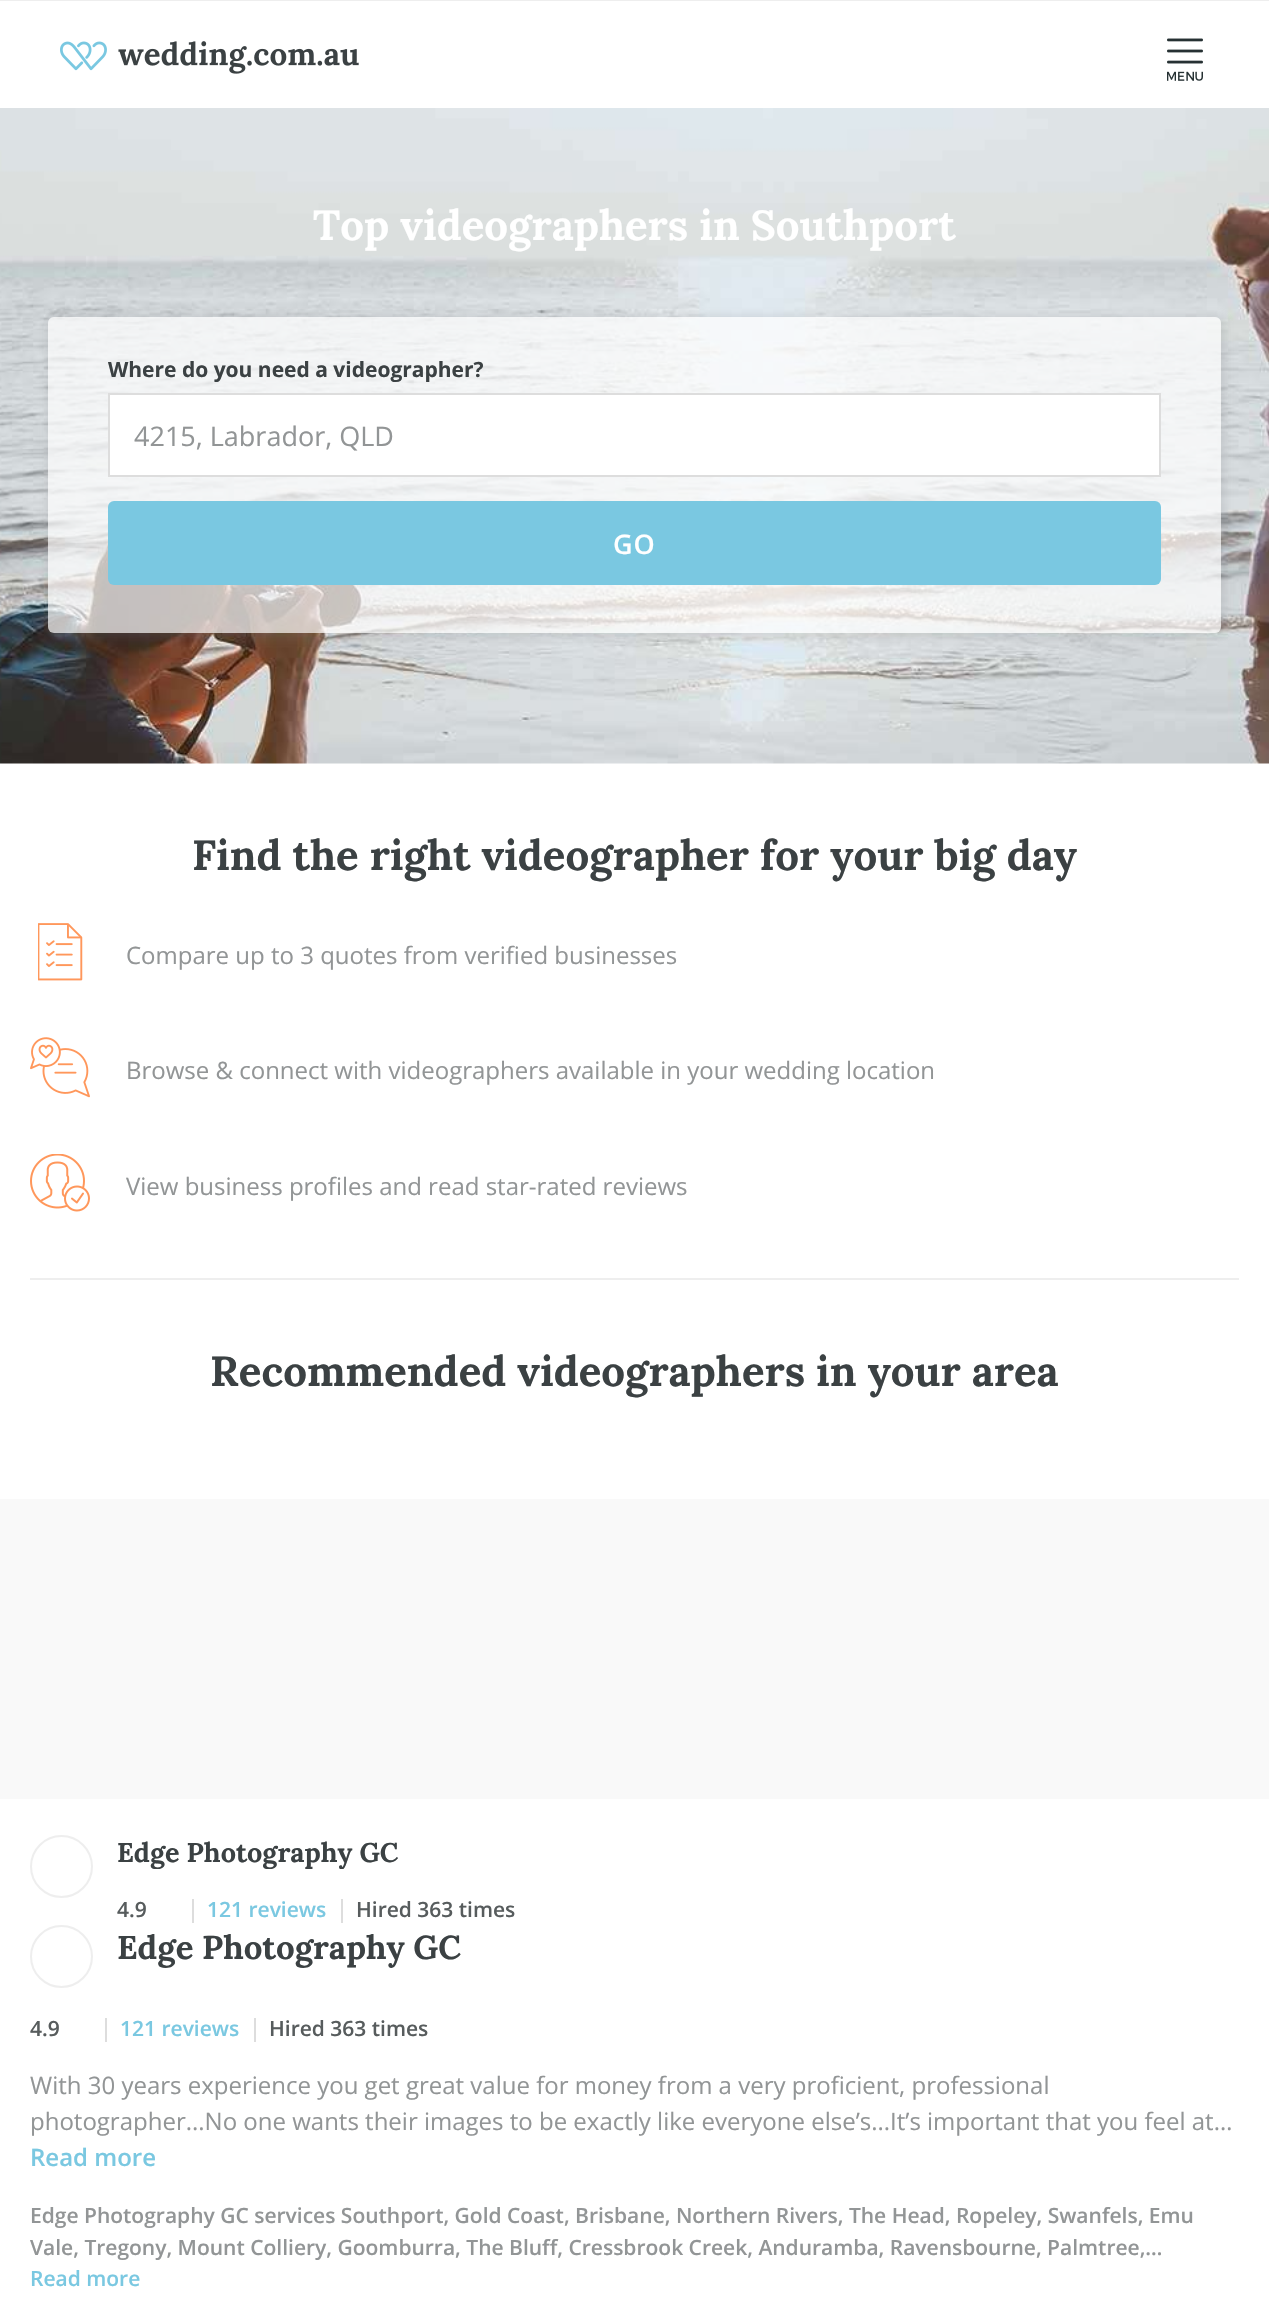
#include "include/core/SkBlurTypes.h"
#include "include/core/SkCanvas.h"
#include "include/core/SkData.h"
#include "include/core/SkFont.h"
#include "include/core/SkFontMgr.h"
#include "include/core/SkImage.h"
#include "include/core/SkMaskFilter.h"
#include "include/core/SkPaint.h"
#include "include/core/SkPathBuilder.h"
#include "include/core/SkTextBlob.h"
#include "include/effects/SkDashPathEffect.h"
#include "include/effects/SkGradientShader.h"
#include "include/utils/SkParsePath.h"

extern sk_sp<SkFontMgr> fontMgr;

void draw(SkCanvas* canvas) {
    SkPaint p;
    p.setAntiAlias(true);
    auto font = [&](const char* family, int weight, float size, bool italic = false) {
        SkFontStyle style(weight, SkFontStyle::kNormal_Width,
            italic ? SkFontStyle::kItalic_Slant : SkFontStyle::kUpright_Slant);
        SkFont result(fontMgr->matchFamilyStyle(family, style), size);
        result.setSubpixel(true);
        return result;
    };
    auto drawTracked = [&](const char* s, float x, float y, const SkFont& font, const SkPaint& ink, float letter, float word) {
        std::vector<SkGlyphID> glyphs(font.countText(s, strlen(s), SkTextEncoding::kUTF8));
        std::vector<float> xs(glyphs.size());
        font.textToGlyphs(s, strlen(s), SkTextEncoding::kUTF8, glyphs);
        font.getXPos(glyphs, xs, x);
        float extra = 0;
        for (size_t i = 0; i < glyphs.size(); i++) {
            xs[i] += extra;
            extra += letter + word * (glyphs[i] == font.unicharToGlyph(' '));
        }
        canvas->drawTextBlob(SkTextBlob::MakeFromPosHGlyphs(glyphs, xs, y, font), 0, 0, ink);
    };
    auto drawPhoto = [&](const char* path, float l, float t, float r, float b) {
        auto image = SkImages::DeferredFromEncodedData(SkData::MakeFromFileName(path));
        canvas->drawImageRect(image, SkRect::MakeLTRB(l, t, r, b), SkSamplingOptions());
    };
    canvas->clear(0xFFFFFFFF);
    p.setColor(0xFFEEEEEE);
    canvas->drawRect(SkRect::MakeLTRB(0, 0, 1269, 1), p);
    drawPhoto("media/1.png", 60, 41, 359, 74);
    drawPhoto("media/2.png", 1167, 38, 1203, 81);
    drawPhoto("media/3.png", 0, 108, 1269, 764);
    auto font1 = font("Lora", 700, 42);
    p.setColor(0xFFFFFFFF);
    canvas->drawString("Top videographers in Southport", 313, 240, font1, p);
    canvas->save();
    canvas->clipPath(SkPathBuilder(SkPathFillType::kEvenOdd).moveTo(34, 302).lineTo(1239, 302).lineTo(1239, 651).lineTo(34, 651).close().moveTo(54, 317).lineTo(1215, 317).cubicTo(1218.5f, 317, 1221, 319.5f, 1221, 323).lineTo(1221, 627).cubicTo(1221, 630.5f, 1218.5f, 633, 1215, 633).lineTo(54, 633).cubicTo(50.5f, 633, 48, 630.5f, 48, 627).lineTo(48, 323).cubicTo(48, 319.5f, 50.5f, 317, 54, 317).close().detach(), true);
    p.setColor(0x33808285);
    p.setMaskFilter(SkMaskFilter::MakeBlur(kNormal_SkBlurStyle, 4));
    canvas->drawRoundRect(SkRect::MakeLTRB(47, 315, 1226, 638), 9, 9, p);
    p.setMaskFilter(nullptr);
    canvas->restore();
    p.setColor(0xB3FFFFFF);
    canvas->drawRoundRect(SkRect::MakeLTRB(48, 317, 1221, 633), 6, 6, p);
    auto font2 = font("Open Sans", 700, 21);
    p.setColor(0xFF3B4143);
    canvas->drawString("Where do you need a videographer?", 108, 377, font2, p);
    p.setColor(0xFFFFFFFF);
    canvas->drawRect(SkRect::MakeLTRB(109, 394, 1160, 476), p);
    p.setStyle(SkPaint::kStroke_Style);
    p.setStrokeWidth(2);
    p.setColor(0xFFDDDDDD);
    canvas->drawRect(SkRect::MakeLTRB(109, 394, 1160, 476), p);
    auto font3 = font("Open Sans", 400, 27);
    p.setStyle(SkPaint::kFill_Style);
    p.setColor(0xFF929596);
    canvas->drawString("4215, Labrador, QLD", 134, 446, font3, p);
    p.setColor(0xFF7AC8E1);
    canvas->drawRoundRect(SkRect::MakeLTRB(108, 501, 1161, 585), 6, 6, p);
    auto font4 = font("Open Sans", 600, 27);
    p.setColor(0xFFFFFFFF);
    drawTracked("GO", 613, 554, font4, p, 1, 0);
    p.setColor(0xFFEEEEEE);
    canvas->drawRect(SkRect::MakeLTRB(30, 1278, 1239, 1280), p);
    p.setColor(0xFF3B4143);
    canvas->drawString("Find the right videographer for your big day", 192, 870, font1, p);
    drawPhoto("media/4.png", 38, 923, 83, 981);
    auto font5 = font("Open Sans", 400, 24);
    p.setColor(0xFF929596);
    canvas->drawString("Compare up to 3 quotes from verified businesses", 126, 964, font5, p);
    drawPhoto("media/5.png", 30, 1037, 90, 1098);
    canvas->drawString("Browse & connect with videographers available in your wedding location", 126, 1079, font5, p);
    drawPhoto("media/6.png", 30, 1154, 90, 1212);
    canvas->drawString("View business profiles and read star-rated reviews", 126, 1195, font5, p);
    p.setColor(0xFF3B4143);
    canvas->drawString("Recommended videographers in your area", 210, 1386, font1, p);
    p.setColor(0xFFF9F9F9);
    canvas->drawRect(SkRect::MakeLTRB(0, 1499, 1269, 1799), p);
    p.setStyle(SkPaint::kStroke_Style);
    p.setColor(0xFFEEEEEE);
    canvas->drawCircle(61.5f, 1866.5f, 30.5f, p);
    canvas->save();
    canvas->clipRect(SkRect::MakeLTRB(117, 1835, 1239, 1869));
    auto font6 = font("Lora", 700, 27);
    p.setStyle(SkPaint::kFill_Style);
    p.setColor(0xFF3B4143);
    canvas->drawString("Edge Photography GC", 117, 1862, font6, p);
    canvas->restore();
    auto font7 = font("Open Sans", 600, 21);
    p.setColor(0xFF575C5D);
    canvas->drawString("4.9", 117, 1917, font7, p);
    p.setColor(0xFFDDDDDD);
    canvas->drawRect(SkRect::MakeLTRB(192, 1899, 194, 1923), p);
    p.setColor(0xFF7AC8E1);
    canvas->drawString("121 reviews", 207, 1917, font7, p);
    p.setColor(0xFFDDDDDD);
    canvas->drawRect(SkRect::MakeLTRB(341, 1899, 343, 1923), p);
    p.setColor(0xFF575C5D);
    canvas->drawString("Hired 363 times", 356, 1917, font7, p);
    p.setStyle(SkPaint::kStroke_Style);
    p.setColor(0xFFEEEEEE);
    canvas->drawCircle(61.5f, 1956.5f, 30.5f, p);
    auto font8 = font("Lora", 700, 33);
    p.setStyle(SkPaint::kFill_Style);
    p.setColor(0xFF3B4143);
    canvas->drawString("Edge Photography GC", 117, 1959, font8, p);
    p.setColor(0xFF575C5D);
    canvas->drawString("4.9", 30, 2036, font7, p);
    p.setColor(0xFFDDDDDD);
    canvas->drawRect(SkRect::MakeLTRB(105, 2018, 107, 2042), p);
    p.setColor(0xFF7AC8E1);
    canvas->drawString("121 reviews", 120, 2036, font7, p);
    p.setColor(0xFFDDDDDD);
    canvas->drawRect(SkRect::MakeLTRB(254, 2018, 256, 2042), p);
    p.setColor(0xFF575C5D);
    canvas->drawString("Hired 363 times", 269, 2036, font7, p);
    p.setColor(0xFF929596);
    canvas->drawString("With 30 years experience you get great value for money from a very proficient, professional", 30, 2094, font5, p);
    canvas->drawString("photographer...No one wants their images to be exactly like everyone else’s...It’s important that you feel at…", 30, 2130, font5, p);
    auto font9 = font("Open Sans", 600, 24);
    p.setColor(0xFF7AC8E1);
    canvas->drawString("Read more", 30, 2166, font9, p);
    p.setColor(0xFF929596);
    canvas->drawString("Edge Photography GC services Southport, Gold Coast, Brisbane, Northern Rivers, The Head, Ropeley, Swanfels, Emu", 30, 2223, font7, p);
    canvas->drawString("Vale, Tregony, Mount Colliery, Goomburra, The Bluff, Cressbrook Creek, Anduramba, Ravensbourne, Palmtree,…", 30, 2255, font7, p);
    p.setColor(0xFF7AC8E1);
    canvas->drawString("Read more", 30, 2286, font7, p);
}
